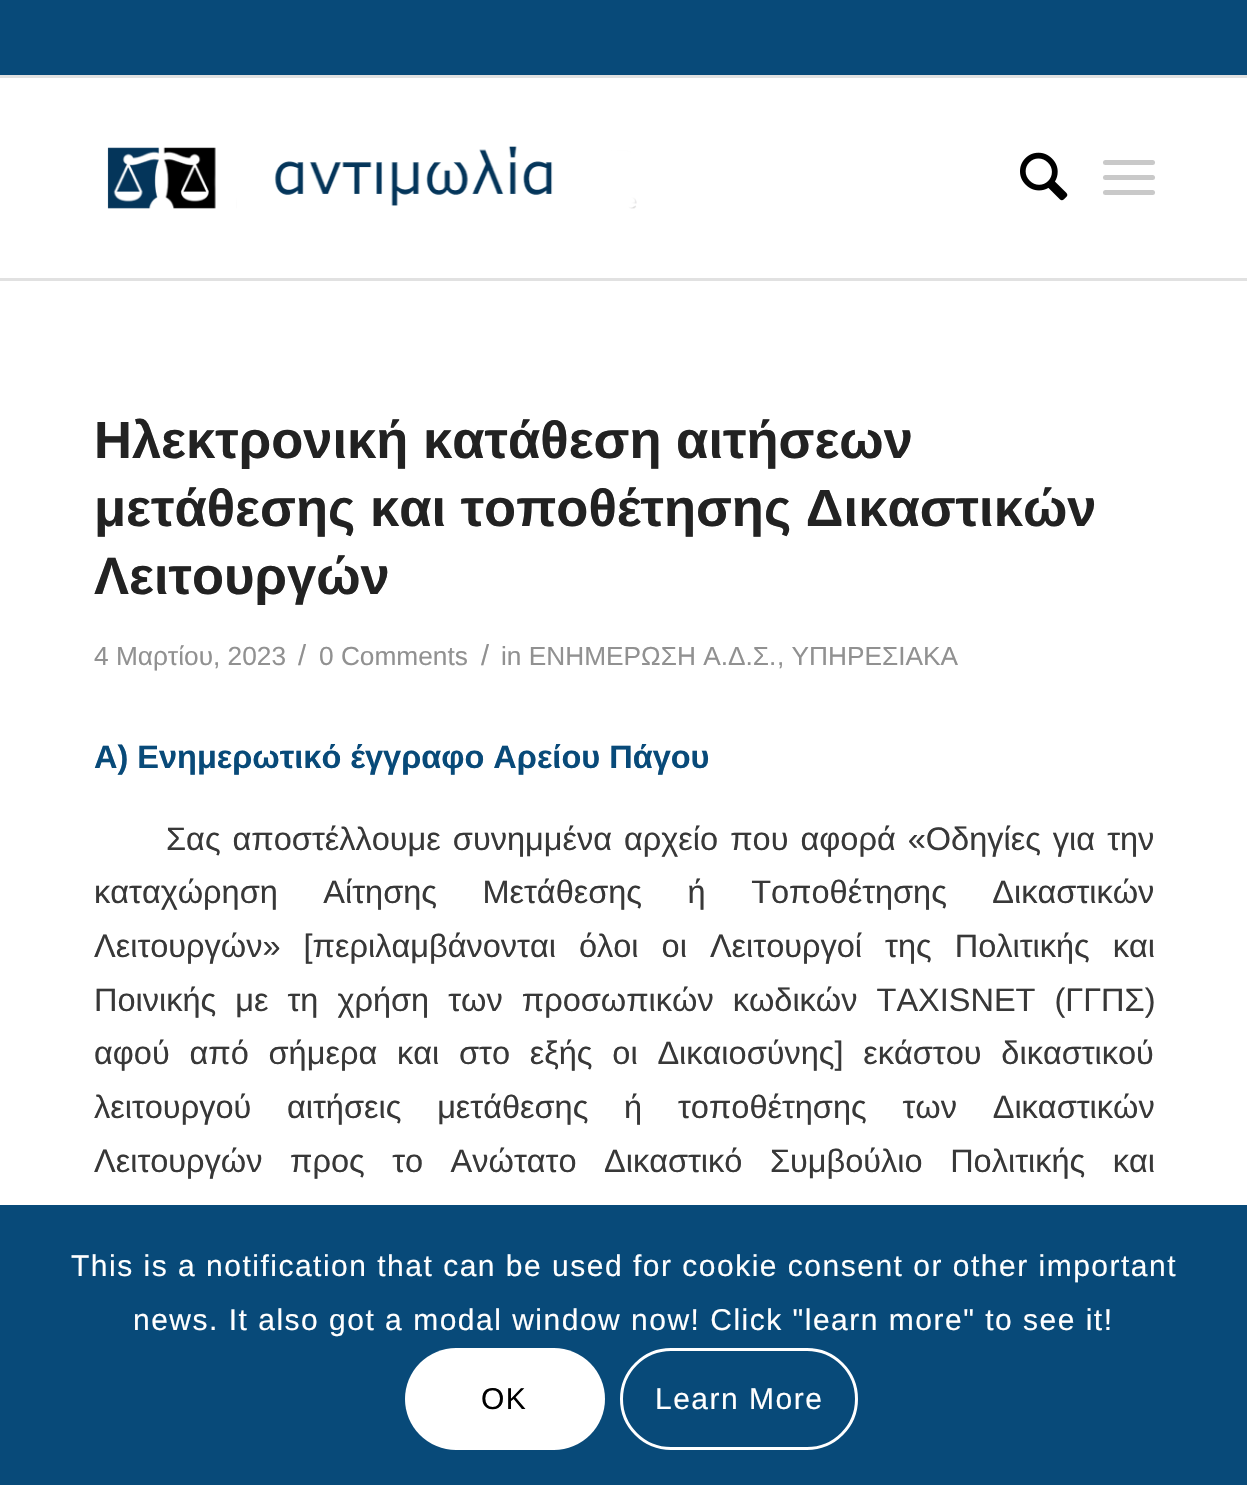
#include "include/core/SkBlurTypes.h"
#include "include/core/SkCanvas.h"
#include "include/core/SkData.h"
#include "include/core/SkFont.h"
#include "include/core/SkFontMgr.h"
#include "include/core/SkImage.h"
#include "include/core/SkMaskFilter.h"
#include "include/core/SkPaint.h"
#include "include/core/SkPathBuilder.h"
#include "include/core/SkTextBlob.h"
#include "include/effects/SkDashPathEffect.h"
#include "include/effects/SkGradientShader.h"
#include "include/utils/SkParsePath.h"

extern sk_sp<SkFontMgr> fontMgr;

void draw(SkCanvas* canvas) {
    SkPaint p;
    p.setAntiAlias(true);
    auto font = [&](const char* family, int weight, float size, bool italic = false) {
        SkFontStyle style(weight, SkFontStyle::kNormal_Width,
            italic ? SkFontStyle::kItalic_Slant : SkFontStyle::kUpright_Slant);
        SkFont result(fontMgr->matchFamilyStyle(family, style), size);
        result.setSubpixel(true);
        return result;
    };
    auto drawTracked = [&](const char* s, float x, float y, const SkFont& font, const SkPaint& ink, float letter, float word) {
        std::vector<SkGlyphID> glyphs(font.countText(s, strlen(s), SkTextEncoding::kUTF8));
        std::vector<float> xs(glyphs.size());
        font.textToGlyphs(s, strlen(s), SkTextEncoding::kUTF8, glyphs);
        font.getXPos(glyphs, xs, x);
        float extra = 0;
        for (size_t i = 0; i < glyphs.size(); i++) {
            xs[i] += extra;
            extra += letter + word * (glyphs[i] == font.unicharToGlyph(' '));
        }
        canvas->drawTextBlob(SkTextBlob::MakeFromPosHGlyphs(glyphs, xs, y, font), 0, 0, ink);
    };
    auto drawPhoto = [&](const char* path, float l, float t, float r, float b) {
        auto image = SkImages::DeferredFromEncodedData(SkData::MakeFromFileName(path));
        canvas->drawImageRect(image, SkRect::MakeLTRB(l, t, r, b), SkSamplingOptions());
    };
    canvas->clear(0xFFFFFFFF);
    {
        const struct { float l, t, r, b; SkColor color; } items[] = {
            {0, 0, 1247, 75, 0xFF084A79},
            {0, 75, 1247, 78, 0xFFE1E1E1},
            {0, 278, 1247, 281, 0xFFE1E1E1},
        };
        for (auto [l, t, r, b, color] : items) {
            p.setColor(color);
            canvas->drawRect(SkRect::MakeLTRB(l, t, r, b), p);
        }
    }
    drawPhoto("media/1.png", 107, 146, 637, 209);
    drawPhoto("media/2.png", 1020, 152, 1068, 201);
    p.setColor(0xFFC9C9C9);
    canvas->drawRoundRect(SkRect::MakeLTRB(1103, 175, 1155, 180), 2.5f, 2.5f, p);
    canvas->drawRoundRect(SkRect::MakeLTRB(1103, 160, 1155, 165), 2.5f, 2.5f, p);
    canvas->drawRoundRect(SkRect::MakeLTRB(1103, 190, 1155, 195), 2.5f, 2.5f, p);
    auto font1 = font("Liberation Sans", 700, 52.5f);
    p.setColor(0xFF222222);
    {
        const struct { const char* s; float x, y; } items[] = {
            {"Ηλεκτρονική κατάθεση αιτήσεων", 94, 458},
            {"μετάθεσης και τοποθέτησης Δικαστικών", 94, 526},
            {"Λειτουργών", 94, 594},
        };
        for (auto [s, x, y] : items) {
            canvas->drawString(s, x, y, font1, p);
        }
    }
    auto font2 = font("Liberation Sans", 400, 26.25f);
    p.setColor(0xFF919191);
    canvas->drawString("4 Μαρτίου, 2023", 94, 665, font2, p);
    auto font3 = font("Liberation Sans", 400, 29);
    canvas->drawString("/", 298, 665, font3, p);
    canvas->drawString("0 Comments", 319, 665, font2, p);
    canvas->drawString("/", 481, 665, font3, p);
    canvas->drawString("in ΕΝΗΜΕΡΩΣΗ Α.Δ.Σ.", 501, 665, font2, p);
    canvas->drawString(", ΥΠΗΡΕΣΙΑΚΑ", 777, 665, font2, p);
    auto font4 = font("Liberation Sans", 700, 32.5f);
    p.setColor(0xFF084A79);
    canvas->drawString("Α) Ενημερωτικό έγγραφο Αρείου Πάγου", 94, 768, font4, p);
    auto font5 = font("Liberation Sans", 400, 32.5f);
    p.setColor(0xFF383838);
    drawTracked("Σας αποστέλλουμε συνημμένα αρχείο που αφορά «Οδηγίες για την", 166, 850, font5, p, 0, 3);
    drawTracked("καταχώρηση Αίτησης Μετάθεσης ή Τοποθέτησης Δικαστικών", 94, 903, font5, p, 0, 36.5f);
    drawTracked("Λειτουργών» [περιλαμβάνονται όλοι οι Λειτουργοί της Πολιτικής και", 94, 957, font5, p, 0, 14);
    drawTracked("Ποινικής με τη χρήση των προσωπικών κωδικών TAXISNET (ΓΓΠΣ)", 94, 1011, font5, p, 0, 10);
    drawTracked("αφού από σήμερα και στο εξής οι Δικαιοσύνης] εκάστου δικαστικού", 94, 1064, font5, p, 0, 10.75f);
    drawTracked("λειτουργού αιτήσεις μετάθεσης ή τοποθέτησης των Δικαστικών", 94, 1118, font5, p, 0, 26.75f);
    drawTracked("Λειτουργών προς το Ανώτατο Δικαστικό Συμβούλιο Πολιτικής και", 94, 1172, font5, p, 0, 18.5f);
    p.setColor(0xFF084A79);
    canvas->drawRect(SkRect::MakeLTRB(0, 1205, 1247, 1485), p);
    auto font6 = font("Liberation Sans", 400, 30);
    p.setColor(0xFFFFFFFF);
    drawTracked("This is a notification that can be used for cookie consent or other important", 71, 1276, font6, p, 1.5f, 0);
    drawTracked("news. It also got a modal window now! Click \"learn more\" to see it!", 133, 1330, font6, p, 1.5f, 0);
    canvas->drawRoundRect(SkRect::MakeLTRB(405, 1348, 605, 1450), 51, 51, p);
    p.setColor(0xFF000000);
    drawTracked("OK", 481, 1409, font6, p, 1.5f, 0);
    p.setStyle(SkPaint::kStroke_Style);
    p.setStrokeWidth(3);
    p.setColor(0xFFFFFFFF);
    canvas->drawRoundRect(SkRect::MakeLTRB(621.5f, 1349.5f, 856.5f, 1448.5f), 49.5f, 49.5f, p);
    p.setStyle(SkPaint::kFill_Style);
    drawTracked("Learn More", 655, 1409, font6, p, 1.5f, 0);
}
